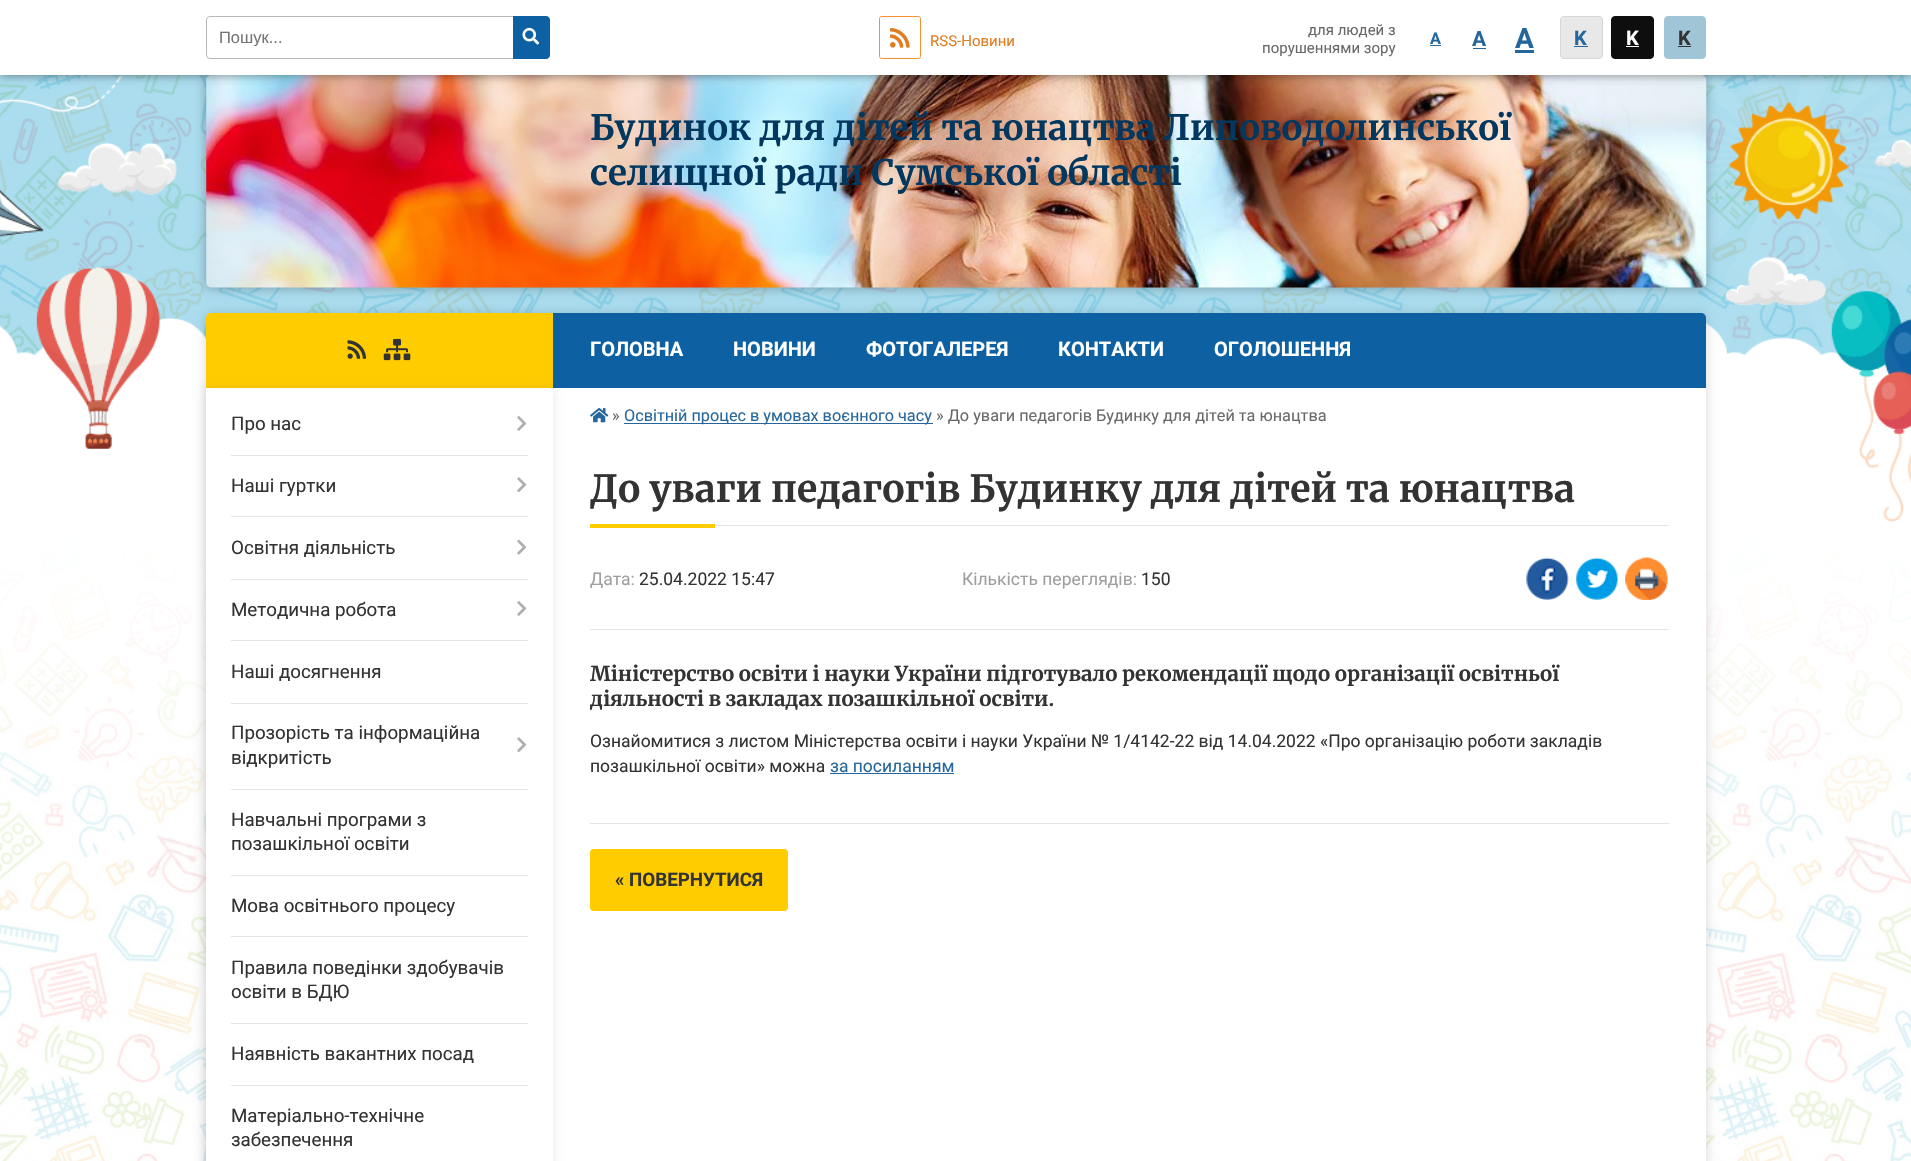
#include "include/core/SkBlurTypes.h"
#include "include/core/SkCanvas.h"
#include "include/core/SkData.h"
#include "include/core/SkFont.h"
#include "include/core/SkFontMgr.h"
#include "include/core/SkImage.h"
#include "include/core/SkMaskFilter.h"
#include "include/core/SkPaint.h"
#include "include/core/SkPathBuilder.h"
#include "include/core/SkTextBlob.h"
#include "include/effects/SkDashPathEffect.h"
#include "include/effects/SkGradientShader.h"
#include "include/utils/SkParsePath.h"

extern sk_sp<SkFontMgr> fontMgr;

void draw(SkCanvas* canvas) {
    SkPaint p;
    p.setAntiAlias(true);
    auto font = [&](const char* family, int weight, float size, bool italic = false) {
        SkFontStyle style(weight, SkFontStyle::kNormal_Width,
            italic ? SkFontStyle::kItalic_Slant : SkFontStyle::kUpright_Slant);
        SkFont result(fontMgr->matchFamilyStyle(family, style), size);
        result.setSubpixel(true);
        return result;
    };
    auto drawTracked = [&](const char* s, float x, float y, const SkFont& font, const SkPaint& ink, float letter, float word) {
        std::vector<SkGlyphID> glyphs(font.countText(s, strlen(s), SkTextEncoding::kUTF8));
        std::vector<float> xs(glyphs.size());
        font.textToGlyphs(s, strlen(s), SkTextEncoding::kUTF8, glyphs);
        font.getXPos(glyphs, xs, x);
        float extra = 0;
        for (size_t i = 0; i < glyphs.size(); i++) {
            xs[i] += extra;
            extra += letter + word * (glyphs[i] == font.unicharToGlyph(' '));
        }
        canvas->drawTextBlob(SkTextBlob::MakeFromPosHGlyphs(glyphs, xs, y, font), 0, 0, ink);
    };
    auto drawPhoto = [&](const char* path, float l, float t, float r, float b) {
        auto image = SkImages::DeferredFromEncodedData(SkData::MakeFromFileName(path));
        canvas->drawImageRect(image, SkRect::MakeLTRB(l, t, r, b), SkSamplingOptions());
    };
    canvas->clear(0xFFFFFFFF);
    drawPhoto("media/1.png", 0, 406, 1911, 1161);
    p.setColor(0xFF9DD8ED);
    canvas->drawRect(SkRect::MakeLTRB(0, 75, 1911, 378), p);
    drawPhoto("media/14.png", 0, 75, 1911, 378);
    drawPhoto("media/15.png", 0, 75, 1911, 862);
    p.setColor(0x4D000000);
    p.setMaskFilter(SkMaskFilter::MakeBlur(kNormal_SkBlurStyle, 6));
    canvas->drawRoundRect(SkRect::MakeLTRB(206, 75, 1706, 288), 5, 5, p);
    p.setMaskFilter(nullptr);
    drawPhoto("media/4.png", 206, 75, 1707, 288);
    p.setColor(0x66000000);
    p.setMaskFilter(SkMaskFilter::MakeBlur(kNormal_SkBlurStyle, 4.5f));
    canvas->drawRect(SkRect::MakeLTRB(0, 1, 1911, 76), p);
    p.setMaskFilter(nullptr);
    p.setColor(0xFFFFFFFF);
    canvas->drawRect(SkRect::MakeLTRB(0, 0, 1911, 75), p);
    p.setStyle(SkPaint::kStroke_Style);
    p.setStrokeWidth(1);
    p.setColor(0xFFB7B7B7);
    canvas->drawRoundRect(SkRect::MakeLTRB(206.5f, 16.5f, 549.5f, 58.5f), 3.5f, 3.5f, p);
    canvas->save();
    canvas->clipRect(SkRect::MakeLTRB(220, 28, 499, 46));
    auto font1 = font("Liberation Sans", 400, 16.5f);
    p.setStyle(SkPaint::kFill_Style);
    p.setColor(0xFF757575);
    canvas->drawString("Пошук...", 219, 43, font1, p);
    canvas->restore();
    p.setColor(0xFF0D61A2);
    canvas->drawPath(SkPathBuilder().moveTo(513, 16).lineTo(546, 16).cubicTo(548, 16, 550, 18, 550, 20).lineTo(550, 55).cubicTo(550, 57, 548, 59, 546, 59).lineTo(513, 59).close().detach(), p);
    drawPhoto("media/2.png", 522, 27, 540, 45);
    p.setStyle(SkPaint::kStroke_Style);
    p.setColor(0xFFF79030);
    canvas->drawRoundRect(SkRect::MakeLTRB(879.5f, 16.5f, 920.5f, 58.5f), 2, 2, p);
    drawPhoto("media/3.png", 890, 28, 910, 48);
    auto font2 = font("Roboto", 400, 15);
    p.setStyle(SkPaint::kFill_Style);
    p.setColor(0xFFE07D21);
    canvas->drawString("RSS-Новини", 930, 46, font2, p);
    p.setColor(0xFF696969);
    canvas->drawString("для людей з", 1308, 35, font2, p);
    canvas->drawString("порушеннями зору", 1262, 53, font2, p);
    auto font3 = font("Roboto", 700, 16.25f);
    p.setColor(0xFF25669C);
    canvas->drawString("A", 1430, 44, font3, p);
    canvas->drawRect(SkRect::MakeLTRB(1430, 45, 1441, 46), p);
    auto font4 = font("Roboto", 700, 21);
    canvas->drawString("A", 1472, 46, font4, p);
    canvas->drawRect(SkRect::MakeLTRB(1473, 48, 1486, 49), p);
    auto font5 = font("Roboto", 700, 28);
    canvas->drawString("A", 1515, 48, font5, p);
    canvas->drawRect(SkRect::MakeLTRB(1515, 50, 1534, 53), p);
    p.setColor(0xFFE8E8E8);
    canvas->drawRoundRect(SkRect::MakeLTRB(1560.5f, 16.5f, 1602.5f, 58.5f), 3.5f, 3.5f, p);
    p.setStyle(SkPaint::kStroke_Style);
    p.setColor(0xFFD7D7D7);
    canvas->drawRoundRect(SkRect::MakeLTRB(1560.5f, 16.5f, 1602.5f, 58.5f), 3.5f, 3.5f, p);
    auto font6 = font("Roboto", 700, 20);
    p.setStyle(SkPaint::kFill_Style);
    p.setColor(0xFF25669C);
    canvas->drawString("K", 1574, 45, font6, p);
    canvas->drawRect(SkRect::MakeLTRB(1574, 46, 1588, 47), p);
    p.setColor(0xFF0E0E0E);
    canvas->drawRoundRect(SkRect::MakeLTRB(1611.5f, 16.5f, 1653.5f, 58.5f), 3.5f, 3.5f, p);
    p.setStyle(SkPaint::kStroke_Style);
    canvas->drawRoundRect(SkRect::MakeLTRB(1611.5f, 16.5f, 1653.5f, 58.5f), 3.5f, 3.5f, p);
    p.setStyle(SkPaint::kFill_Style);
    p.setColor(0xFFFFFFFF);
    canvas->drawString("K", 1626, 45, font6, p);
    canvas->drawRect(SkRect::MakeLTRB(1626, 46, 1639, 47), p);
    p.setColor(0xFFA0C5D6);
    canvas->drawRoundRect(SkRect::MakeLTRB(1664.5f, 16.5f, 1705.5f, 58.5f), 3.5f, 3.5f, p);
    p.setStyle(SkPaint::kStroke_Style);
    canvas->drawRoundRect(SkRect::MakeLTRB(1664.5f, 16.5f, 1705.5f, 58.5f), 3.5f, 3.5f, p);
    p.setStyle(SkPaint::kFill_Style);
    p.setColor(0xFF333333);
    canvas->drawString("K", 1678, 45, font6, p);
    canvas->drawRect(SkRect::MakeLTRB(1678, 46, 1691, 47), p);
    auto font7 = font("Merriweather", 300, 35);
    p.setColor(0xFF02375F);
    canvas->drawString("Будинок для дітей та юнацтва Липоводолинської", 590, 140, font7, p);
    canvas->drawString("селищної ради Сумської області", 590, 185, font7, p);
    p.setColor(0x26000000);
    p.setMaskFilter(SkMaskFilter::MakeBlur(kNormal_SkBlurStyle, 6));
    canvas->drawRoundRect(SkRect::MakeLTRB(206, 313, 1706, 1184), 5, 5, p);
    p.setMaskFilter(nullptr);
    p.setColor(0xFFFFFFFF);
    canvas->drawRoundRect(SkRect::MakeLTRB(206, 313, 1706, 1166), 5, 5, p);
    p.setColor(0xFFFFCC00);
    canvas->drawPath(SkPathBuilder().moveTo(211, 313).lineTo(553, 313).lineTo(553, 388).lineTo(206, 388).lineTo(206, 318).cubicTo(206, 315, 208, 313, 211, 313).close().detach(), p);
    drawPhoto("media/5.png", 347, 340, 367, 359);
    drawPhoto("media/6.png", 383, 338, 411, 361);
    p.setColor(0xFF0D61A2);
    canvas->drawPath(SkPathBuilder().moveTo(553, 313).lineTo(1701, 313).cubicTo(1704, 313, 1706, 315, 1706, 318).lineTo(1706, 388).lineTo(553, 388).close().detach(), p);
    canvas->save();
    canvas->clipPath(SkPathBuilder(SkPathFillType::kEvenOdd).moveTo(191, 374).lineTo(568, 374).lineTo(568, 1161).lineTo(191, 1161).close().moveTo(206, 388).lineTo(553, 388).lineTo(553, 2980).lineTo(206, 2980).close().detach(), true);
    p.setColor(0x1A000000);
    p.setMaskFilter(SkMaskFilter::MakeBlur(kNormal_SkBlurStyle, 4.5f));
    canvas->drawRect(SkRect::MakeLTRB(206, 389, 553, 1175), p);
    p.setMaskFilter(nullptr);
    canvas->restore();
    auto font8 = font("Roboto", 400, 18.75f);
    p.setColor(0xFF333333);
    canvas->drawString("Про нас", 231, 430, font8, p);
    p.setColor(0xFFE6E6E6);
    canvas->drawRect(SkRect::MakeLTRB(231, 455, 528, 456), p);
    drawPhoto("media/7.png", 517, 416, 527, 431);
    p.setColor(0xFF333333);
    canvas->drawString("Наші гуртки", 231, 492, font8, p);
    p.setColor(0xFFE6E6E6);
    canvas->drawRect(SkRect::MakeLTRB(231, 516, 528, 517), p);
    drawPhoto("media/8.png", 517, 477, 527, 492);
    p.setColor(0xFF333333);
    canvas->drawString("Освітня діяльність", 231, 554, font8, p);
    p.setColor(0xFFE6E6E6);
    canvas->drawRect(SkRect::MakeLTRB(231, 579, 528, 580), p);
    drawPhoto("media/9.png", 517, 539, 527, 555);
    p.setColor(0xFF333333);
    canvas->drawString("Методична робота", 231, 616, font8, p);
    p.setColor(0xFFE6E6E6);
    canvas->drawRect(SkRect::MakeLTRB(231, 640, 528, 641), p);
    drawPhoto("media/7.png", 517, 601, 527, 616);
    p.setColor(0xFF333333);
    canvas->drawString("Наші досягнення", 231, 678, font8, p);
    p.setColor(0xFFE6E6E6);
    canvas->drawRect(SkRect::MakeLTRB(231, 703, 528, 704), p);
    p.setColor(0xFF333333);
    canvas->drawString("Прозорість та інформаційна", 231, 739, font8, p);
    canvas->drawString("відкритість", 231, 764, font8, p);
    p.setColor(0xFFE6E6E6);
    canvas->drawRect(SkRect::MakeLTRB(231, 789, 528, 790), p);
    drawPhoto("media/8.png", 517, 737, 527, 752);
    p.setColor(0xFF333333);
    canvas->drawString("Навчальні програми з", 231, 826, font8, p);
    canvas->drawString("позашкільної освіти", 231, 850, font8, p);
    p.setColor(0xFFE6E6E6);
    canvas->drawRect(SkRect::MakeLTRB(231, 875, 528, 876), p);
    p.setColor(0xFF333333);
    canvas->drawString("Мова освітнього процесу", 231, 912, font8, p);
    p.setColor(0xFFE6E6E6);
    canvas->drawRect(SkRect::MakeLTRB(231, 936, 528, 937), p);
    p.setColor(0xFF333333);
    canvas->drawString("Правила поведінки здобувачів", 231, 974, font8, p);
    canvas->drawString("освіти в БДЮ", 231, 998, font8, p);
    p.setColor(0xFFE6E6E6);
    canvas->drawRect(SkRect::MakeLTRB(231, 1023, 528, 1024), p);
    p.setColor(0xFF333333);
    canvas->drawString("Наявність вакантних посад", 231, 1060, font8, p);
    p.setColor(0xFFE6E6E6);
    canvas->drawRect(SkRect::MakeLTRB(231, 1085, 528, 1086), p);
    p.setColor(0xFF333333);
    canvas->drawString("Матеріально-технічне", 231, 1122, font8, p);
    canvas->drawString("забезпечення", 231, 1146, font8, p);
    p.setColor(0xFFFFFFFF);
    {
        const struct { const char* s; float x, y; } items[] = {
            {"ГОЛОВНА", 590, 356},
            {"НОВИНИ", 733, 356},
            {"ФОТОГАЛЕРЕЯ", 866, 356},
            {"КОНТАКТИ", 1058, 356},
            {"ОГОЛОШЕННЯ", 1214, 356},
        };
        for (auto [s, x, y] : items) {
            canvas->drawString(s, x, y, font6, p);
        }
    }
    drawPhoto("media/10.png", 590, 408, 609, 423);
    auto font9 = font("Roboto", 400, 16.25f);
    p.setColor(0xFF696969);
    canvas->drawString("»", 612, 421, font9, p);
    p.setColor(0xFF25669C);
    canvas->drawRect(SkRect::MakeLTRB(624, 423, 933, 424), p);
    canvas->drawString("Освітній процес в умовах воєнного часу", 624, 421, font9, p);
    p.setColor(0xFF696969);
    canvas->drawString("» До уваги педагогів Будинку для дітей та юнацтва", 936, 421, font9, p);
    p.setColor(0xFFE5E5E5);
    canvas->drawRect(SkRect::MakeLTRB(715, 525, 1669, 526), p);
    auto font10 = font("Merriweather", 300, 37.5f);
    p.setColor(0xFF333333);
    canvas->drawString("До уваги педагогів Будинку для дітей та юнацтва", 590, 502, font10, p);
    p.setColor(0xFFFFCC00);
    canvas->drawRect(SkRect::MakeLTRB(590, 524, 715, 528), p);
    auto font11 = font("Roboto", 400, 17.5f);
    p.setColor(0xFF9F9F9F);
    canvas->drawString("Дата:", 590, 585, font11, p);
    p.setColor(0xFF333333);
    canvas->drawString("25.04.2022 15:47", 639, 585, font11, p);
    p.setColor(0xFF9F9F9F);
    canvas->drawString("Кількість переглядів:", 962, 585, font11, p);
    p.setColor(0xFF333333);
    canvas->drawString("150", 1141, 585, font11, p);
    drawPhoto("media/11.png", 1526, 557, 1569, 600);
    drawPhoto("media/12.png", 1576, 557, 1618, 600);
    drawPhoto("media/13.png", 1625, 557, 1668, 600);
    p.setColor(0xFFE5E5E5);
    canvas->drawRect(SkRect::MakeLTRB(590, 629, 1669, 630), p);
    auto font12 = font("Merriweather", 300, 20.45f);
    p.setColor(0xFF333333);
    drawTracked("Міністерство освіти і науки України підготувало рекомендації щодо організації освітньої", 590, 681, font12, p, 0, -0.25f);
    drawTracked("діяльності в закладах позашкільної освіти.", 590, 706, font12, p, 0, -0.25f);
    canvas->drawString("Ознайомитися з листом Міністерства освіти і науки України № 1/4142-22 від 14.04.2022 «Про організацію роботи закладів", 590, 747, font11, p);
    canvas->drawString("позашкільної освіти» можна", 590, 772, font11, p);
    p.setColor(0xFF25669C);
    canvas->drawString("за посиланням", 830, 772, font11, p);
    canvas->drawRect(SkRect::MakeLTRB(830, 773, 954, 774), p);
    p.setColor(0xFFE5E5E5);
    canvas->drawRect(SkRect::MakeLTRB(590, 823, 1669, 824), p);
    p.setColor(0xFFFFCC00);
    canvas->drawRoundRect(SkRect::MakeLTRB(590, 849, 788, 911), 4, 4, p);
    auto font13 = font("Roboto", 700, 18.75f);
    p.setColor(0xFF333333);
    canvas->drawString("« ПОВЕРНУТИСЯ", 615, 886, font13, p);
}
